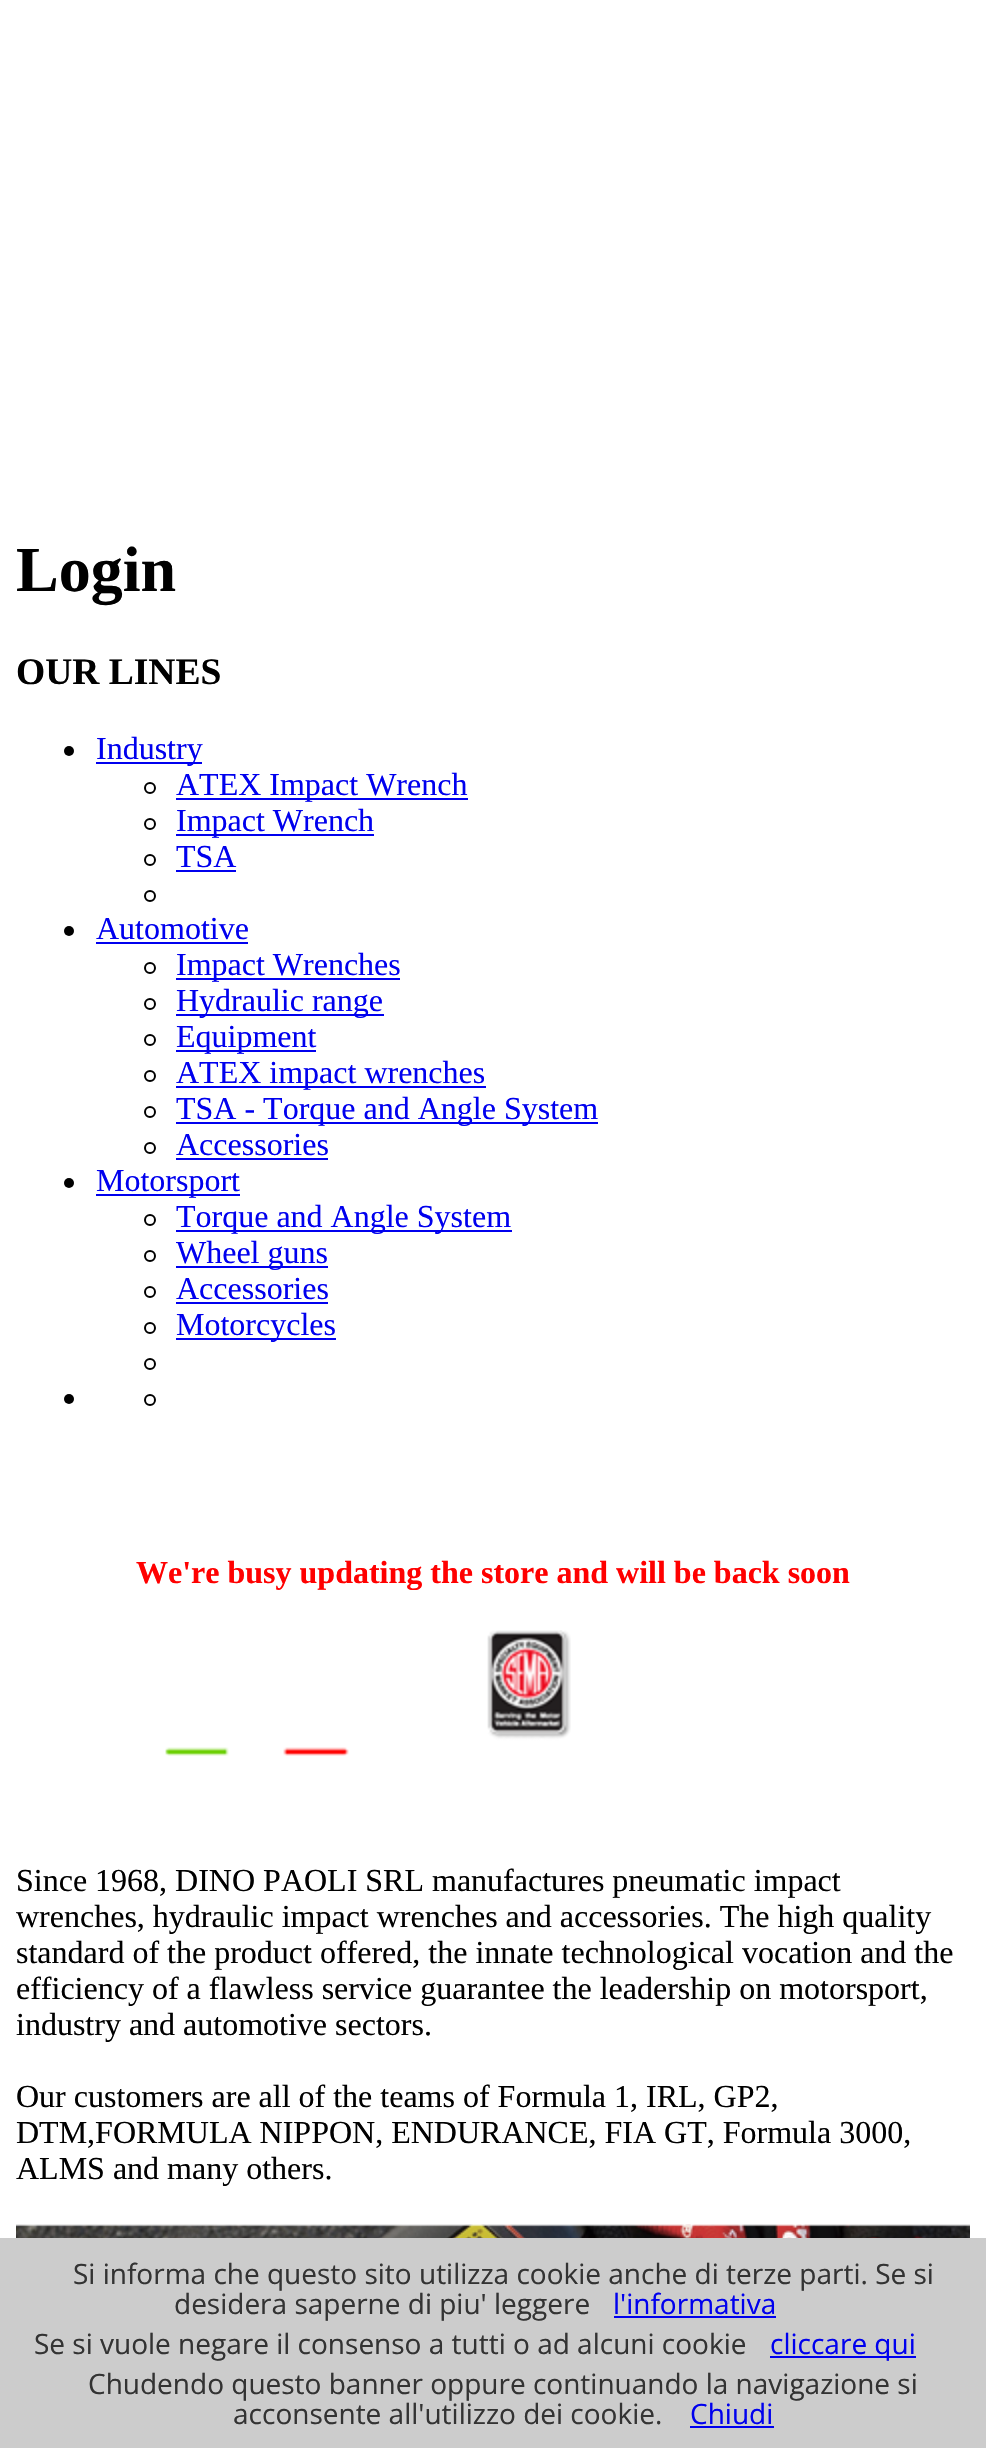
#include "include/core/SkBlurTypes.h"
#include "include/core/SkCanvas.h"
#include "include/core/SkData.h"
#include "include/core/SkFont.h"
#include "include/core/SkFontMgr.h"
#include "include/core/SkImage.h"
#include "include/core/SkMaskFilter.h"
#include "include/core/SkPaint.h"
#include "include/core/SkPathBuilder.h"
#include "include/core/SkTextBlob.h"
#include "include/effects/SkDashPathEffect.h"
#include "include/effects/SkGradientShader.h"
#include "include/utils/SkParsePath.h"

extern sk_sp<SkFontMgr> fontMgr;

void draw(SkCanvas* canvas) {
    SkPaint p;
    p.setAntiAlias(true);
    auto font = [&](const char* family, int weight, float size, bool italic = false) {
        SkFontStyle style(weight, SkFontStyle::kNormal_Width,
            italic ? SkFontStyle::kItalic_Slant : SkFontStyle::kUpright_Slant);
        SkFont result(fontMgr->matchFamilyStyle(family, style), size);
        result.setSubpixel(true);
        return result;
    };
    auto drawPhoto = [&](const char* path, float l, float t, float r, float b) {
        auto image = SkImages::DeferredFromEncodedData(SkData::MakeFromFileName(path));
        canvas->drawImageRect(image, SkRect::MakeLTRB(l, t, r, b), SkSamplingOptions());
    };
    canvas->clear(0xFFFFFFFF);
    auto font1 = font("Liberation Serif", 700, 64);
    p.setColor(0xFF000000);
    canvas->drawString("Login", 16, 591, font1, p);
    auto font2 = font("Liberation Serif", 700, 37.5f);
    canvas->drawString("OUR LINES", 16, 684, font2, p);
    canvas->drawCircle(69, 751, 5, p);
    p.setColor(0xFF0000EE);
    canvas->drawRect(SkRect::MakeLTRB(96, 762, 202, 764), p);
    auto font3 = font("Liberation Serif", 400, 32);
    canvas->drawString("Industry", 96, 759, font3, p);
    p.setStyle(SkPaint::kStroke_Style);
    p.setStrokeWidth(2);
    p.setColor(0xFF000000);
    canvas->drawCircle(150, 788, 5, p);
    p.setStyle(SkPaint::kFill_Style);
    p.setColor(0xFF0000EE);
    canvas->drawRect(SkRect::MakeLTRB(176, 798, 468, 800), p);
    canvas->drawString("ATEX Impact Wrench", 176, 795, font3, p);
    p.setStyle(SkPaint::kStroke_Style);
    p.setColor(0xFF000000);
    canvas->drawCircle(150, 824, 5, p);
    p.setStyle(SkPaint::kFill_Style);
    p.setColor(0xFF0000EE);
    canvas->drawRect(SkRect::MakeLTRB(176, 834, 374, 836), p);
    canvas->drawString("Impact Wrench", 176, 831, font3, p);
    p.setStyle(SkPaint::kStroke_Style);
    p.setColor(0xFF000000);
    canvas->drawCircle(150, 860, 5, p);
    p.setStyle(SkPaint::kFill_Style);
    p.setColor(0xFF0000EE);
    canvas->drawString("TSA", 176, 867, font3, p);
    canvas->drawRect(SkRect::MakeLTRB(176, 870, 236, 872), p);
    p.setStyle(SkPaint::kStroke_Style);
    p.setColor(0xFF000000);
    canvas->drawCircle(150, 896, 5, p);
    p.setStyle(SkPaint::kFill_Style);
    canvas->drawCircle(69, 931, 5, p);
    p.setColor(0xFF0000EE);
    canvas->drawString("Automotive", 96, 939, font3, p);
    canvas->drawRect(SkRect::MakeLTRB(96, 942, 248, 944), p);
    p.setStyle(SkPaint::kStroke_Style);
    p.setColor(0xFF000000);
    canvas->drawCircle(150, 968, 5, p);
    p.setStyle(SkPaint::kFill_Style);
    p.setColor(0xFF0000EE);
    canvas->drawRect(SkRect::MakeLTRB(176, 978, 400, 980), p);
    canvas->drawString("Impact Wrenches", 176, 975, font3, p);
    p.setStyle(SkPaint::kStroke_Style);
    p.setColor(0xFF000000);
    canvas->drawCircle(150, 1004, 5, p);
    p.setStyle(SkPaint::kFill_Style);
    p.setColor(0xFF0000EE);
    canvas->drawRect(SkRect::MakeLTRB(176, 1014, 384, 1016), p);
    canvas->drawString("Hydraulic range", 176, 1011, font3, p);
    p.setStyle(SkPaint::kStroke_Style);
    p.setColor(0xFF000000);
    canvas->drawCircle(150, 1040, 5, p);
    p.setStyle(SkPaint::kFill_Style);
    p.setColor(0xFF0000EE);
    canvas->drawRect(SkRect::MakeLTRB(176, 1050, 316, 1052), p);
    canvas->drawString("Equipment", 176, 1047, font3, p);
    p.setStyle(SkPaint::kStroke_Style);
    p.setColor(0xFF000000);
    canvas->drawCircle(150, 1076, 5, p);
    p.setStyle(SkPaint::kFill_Style);
    p.setColor(0xFF0000EE);
    canvas->drawRect(SkRect::MakeLTRB(176, 1086, 486, 1088), p);
    canvas->drawString("ATEX impact wrenches", 176, 1083, font3, p);
    p.setStyle(SkPaint::kStroke_Style);
    p.setColor(0xFF000000);
    canvas->drawCircle(150, 1112, 5, p);
    p.setStyle(SkPaint::kFill_Style);
    p.setColor(0xFF0000EE);
    canvas->drawRect(SkRect::MakeLTRB(176, 1122, 598, 1124), p);
    canvas->drawString("TSA - Torque and Angle System", 176, 1119, font3, p);
    p.setStyle(SkPaint::kStroke_Style);
    p.setColor(0xFF000000);
    canvas->drawCircle(150, 1148, 5, p);
    p.setStyle(SkPaint::kFill_Style);
    p.setColor(0xFF0000EE);
    canvas->drawString("Accessories", 176, 1155, font3, p);
    canvas->drawRect(SkRect::MakeLTRB(176, 1158, 328, 1160), p);
    p.setColor(0xFF000000);
    canvas->drawCircle(69, 1183, 5, p);
    p.setColor(0xFF0000EE);
    canvas->drawRect(SkRect::MakeLTRB(96, 1194, 240, 1196), p);
    canvas->drawString("Motorsport", 96, 1191, font3, p);
    p.setStyle(SkPaint::kStroke_Style);
    p.setColor(0xFF000000);
    canvas->drawCircle(150, 1220, 5, p);
    p.setStyle(SkPaint::kFill_Style);
    p.setColor(0xFF0000EE);
    canvas->drawRect(SkRect::MakeLTRB(176, 1230, 512, 1232), p);
    canvas->drawString("Torque and Angle System", 176, 1227, font3, p);
    p.setStyle(SkPaint::kStroke_Style);
    p.setColor(0xFF000000);
    canvas->drawCircle(150, 1256, 5, p);
    p.setStyle(SkPaint::kFill_Style);
    p.setColor(0xFF0000EE);
    canvas->drawRect(SkRect::MakeLTRB(176, 1266, 328, 1268), p);
    canvas->drawString("Wheel guns", 176, 1263, font3, p);
    p.setStyle(SkPaint::kStroke_Style);
    p.setColor(0xFF000000);
    canvas->drawCircle(150, 1292, 5, p);
    p.setStyle(SkPaint::kFill_Style);
    p.setColor(0xFF0000EE);
    canvas->drawString("Accessories", 176, 1299, font3, p);
    canvas->drawRect(SkRect::MakeLTRB(176, 1302, 328, 1304), p);
    p.setStyle(SkPaint::kStroke_Style);
    p.setColor(0xFF000000);
    canvas->drawCircle(150, 1328, 5, p);
    p.setStyle(SkPaint::kFill_Style);
    p.setColor(0xFF0000EE);
    canvas->drawRect(SkRect::MakeLTRB(176, 1338, 336, 1340), p);
    canvas->drawString("Motorcycles", 176, 1335, font3, p);
    p.setStyle(SkPaint::kStroke_Style);
    p.setColor(0xFF000000);
    canvas->drawCircle(150, 1364, 5, p);
    p.setStyle(SkPaint::kFill_Style);
    canvas->drawCircle(69, 1399, 5, p);
    p.setStyle(SkPaint::kStroke_Style);
    canvas->drawCircle(150, 1400, 5, p);
    auto font4 = font("Liberation Serif", 700, 32);
    p.setStyle(SkPaint::kFill_Style);
    p.setColor(0xFFFF0000);
    canvas->drawString("We're busy updating the store and will be back soon", 136, 1583, font4, p);
    drawPhoto("media/1.png", 165, 1630, 571, 1756);
    p.setColor(0xFF000000);
    {
        const struct { const char* s; float x, y; } items[] = {
            {"Since 1968, DINO PAOLI SRL manufactures pneumatic impact", 16, 1891},
            {"wrenches, hydraulic impact wrenches and accessories. The high quality", 16, 1927},
            {"standard of the product offered, the innate technological vocation and the", 16, 1963},
            {"efficiency of a flawless service guarantee the leadership on motorsport,", 16, 1999},
            {"industry and automotive sectors.", 16, 2035},
            {"Our customers are all of the teams of Formula 1, IRL, GP2,", 16, 2107},
            {"DTM,FORMULA NIPPON, ENDURANCE, FIA GT, Formula 3000,", 16, 2143},
            {"ALMS and many others.", 16, 2179},
        };
        for (auto [s, x, y] : items) {
            canvas->drawString(s, x, y, font3, p);
        }
    }
    drawPhoto("media/2.png", 16, 2224, 970, 2238);
    p.setColor(0xFFCCCCCC);
    canvas->drawRect(SkRect::MakeLTRB(0, 2238, 986, 2448), p);
    auto font5 = font("Open Sans", 400, 28);
    p.setColor(0xFF333333);
    canvas->drawString("Si informa che questo sito utilizza cookie anche di terze parti. Se si", 73, 2284, font5, p);
    canvas->drawString("desidera saperne di piu' leggere", 174, 2314, font5, p);
    p.setColor(0xFF0000EE);
    canvas->drawString("l'informativa", 613, 2314, font5, p);
    canvas->drawRect(SkRect::MakeLTRB(614, 2316, 776, 2318), p);
    p.setColor(0xFF333333);
    canvas->drawString("Se si vuole negare il consenso a tutti o ad alcuni cookie", 34, 2354, font5, p);
    p.setColor(0xFF0000EE);
    canvas->drawRect(SkRect::MakeLTRB(770, 2356, 916, 2358), p);
    canvas->drawString("cliccare qui", 770, 2354, font5, p);
    p.setColor(0xFF333333);
    canvas->drawString("Chudendo questo banner oppure continuando la navigazione si", 88, 2394, font5, p);
    canvas->drawString("acconsente all'utilizzo dei cookie.", 233, 2424, font5, p);
    p.setColor(0xFF0000EE);
    canvas->drawString("Chiudi", 690, 2424, font5, p);
    canvas->drawRect(SkRect::MakeLTRB(690, 2426, 774, 2428), p);
}
